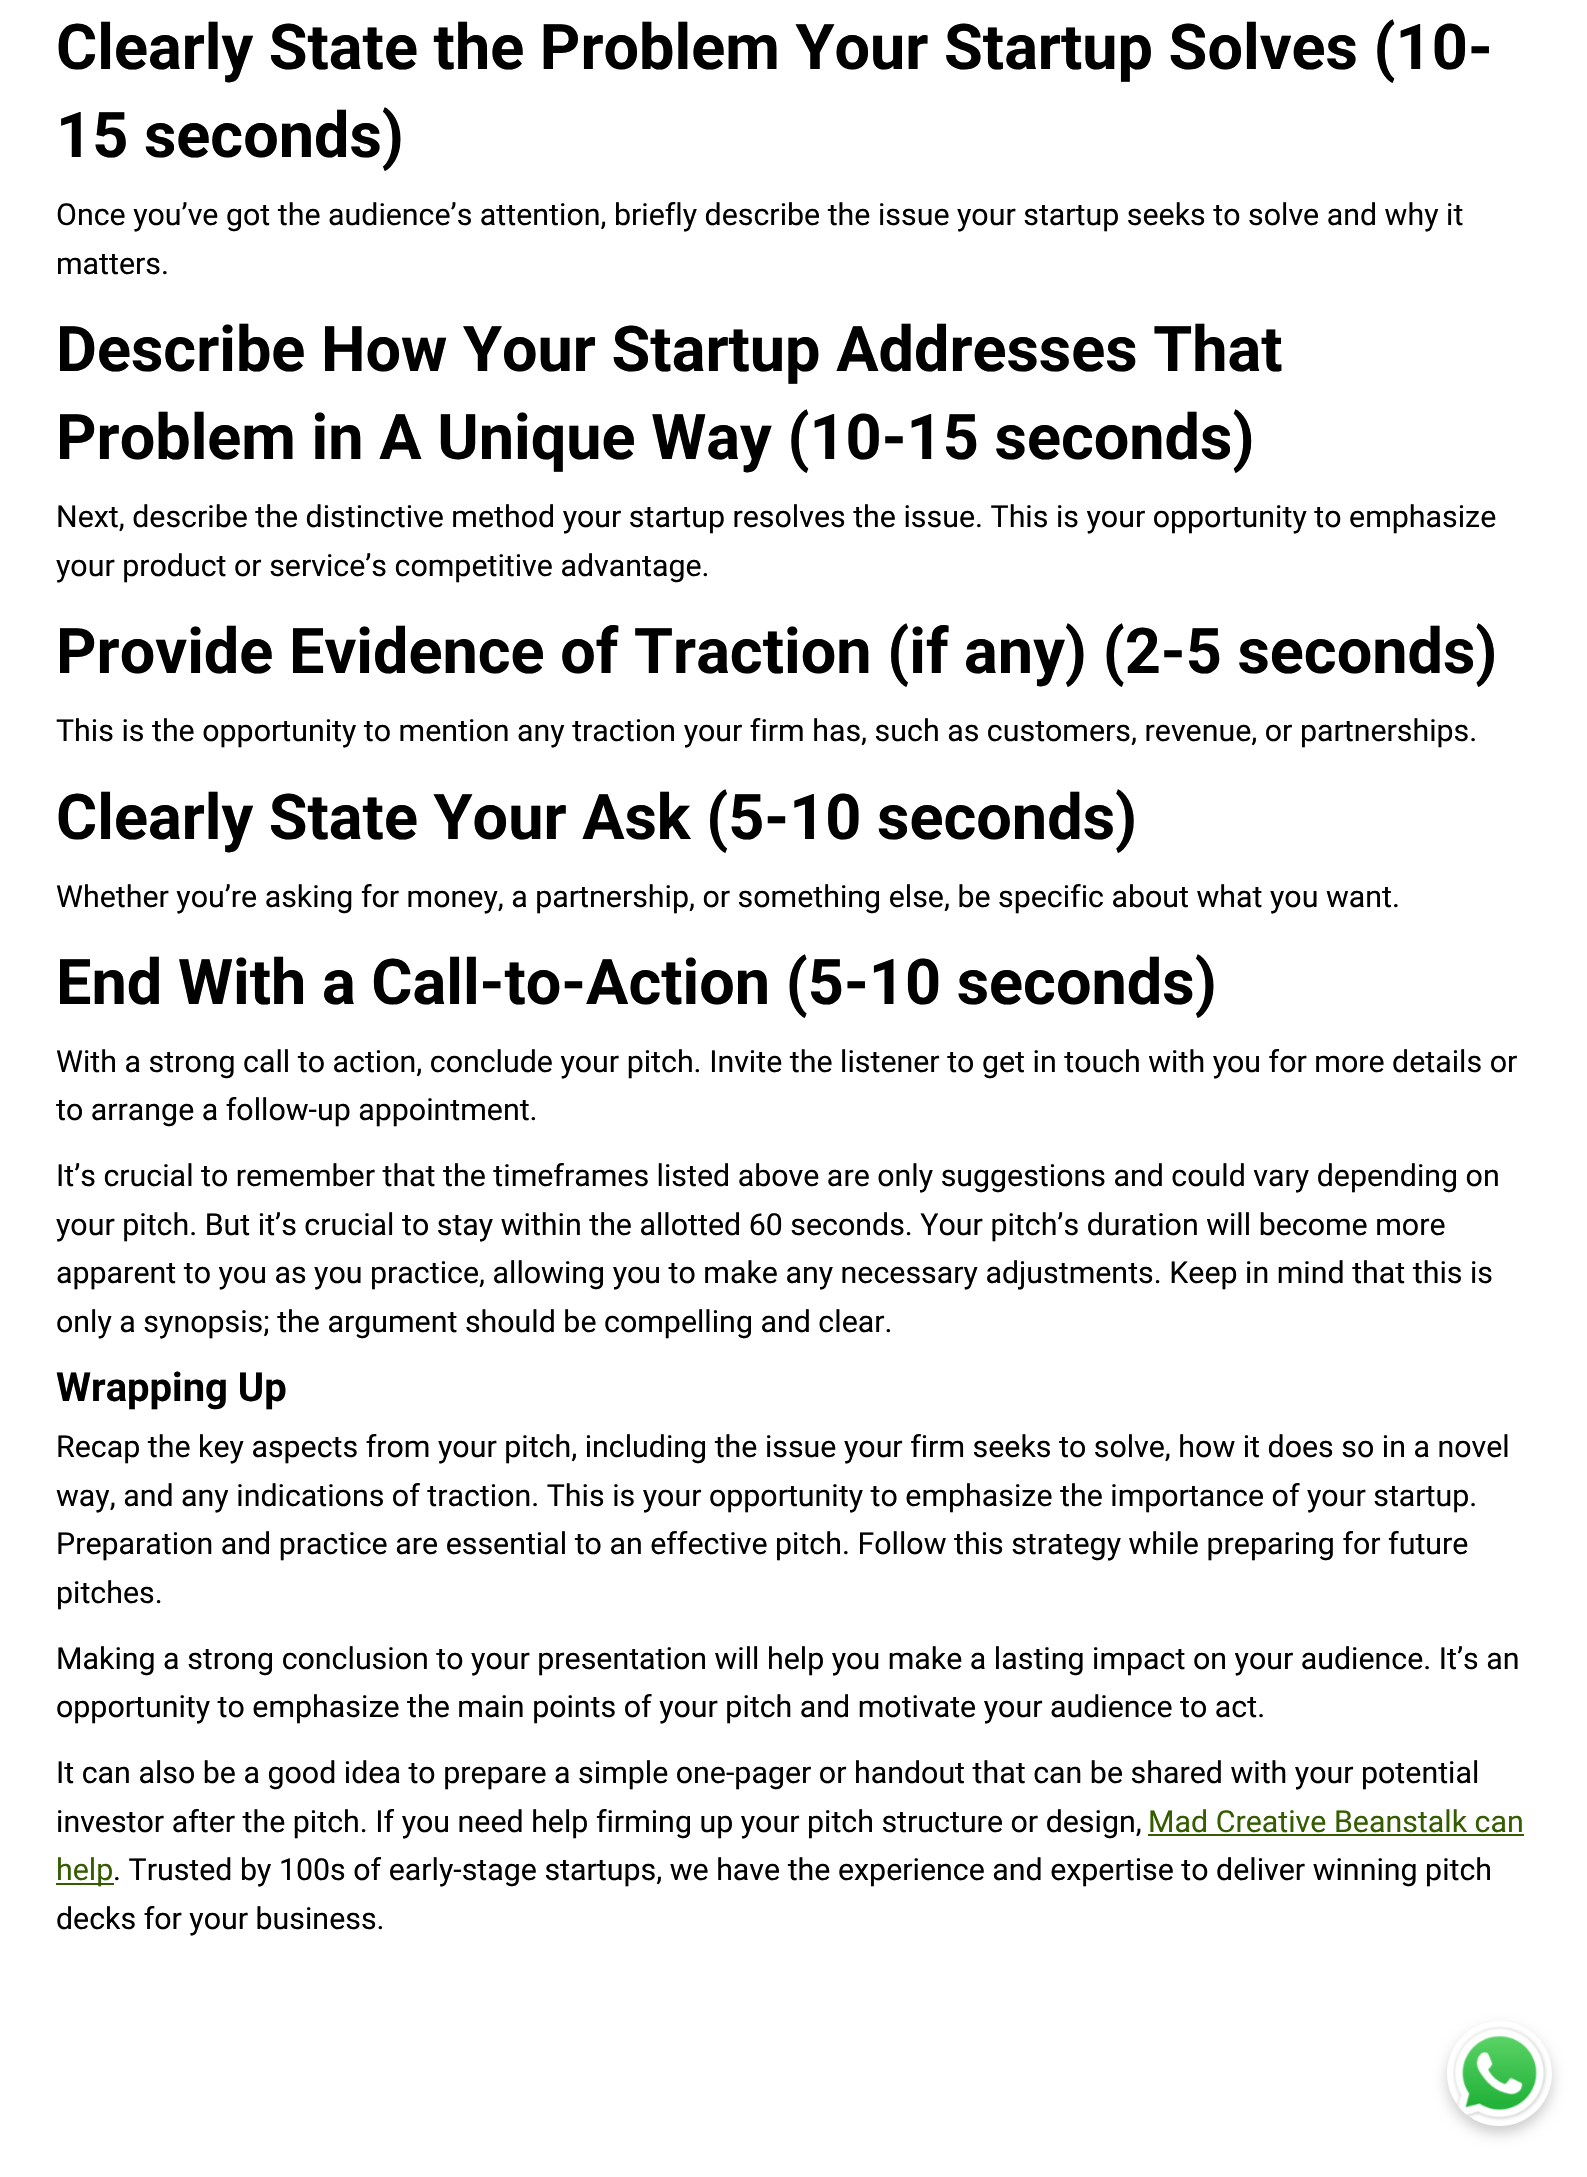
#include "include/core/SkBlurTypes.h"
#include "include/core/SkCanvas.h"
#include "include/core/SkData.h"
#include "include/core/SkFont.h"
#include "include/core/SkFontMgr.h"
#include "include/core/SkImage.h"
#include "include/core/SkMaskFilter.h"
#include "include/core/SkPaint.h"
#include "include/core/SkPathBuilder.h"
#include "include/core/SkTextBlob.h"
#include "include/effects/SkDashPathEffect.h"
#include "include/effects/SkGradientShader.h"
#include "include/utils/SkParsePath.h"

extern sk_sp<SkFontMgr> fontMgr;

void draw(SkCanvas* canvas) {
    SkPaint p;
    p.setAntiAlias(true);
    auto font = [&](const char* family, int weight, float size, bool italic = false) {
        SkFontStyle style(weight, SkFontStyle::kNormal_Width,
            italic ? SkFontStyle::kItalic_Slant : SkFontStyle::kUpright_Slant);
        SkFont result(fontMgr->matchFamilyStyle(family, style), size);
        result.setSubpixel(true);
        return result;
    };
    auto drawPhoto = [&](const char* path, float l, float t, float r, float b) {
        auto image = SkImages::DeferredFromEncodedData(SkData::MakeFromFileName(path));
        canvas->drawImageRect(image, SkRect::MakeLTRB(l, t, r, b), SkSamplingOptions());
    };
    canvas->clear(0xFFFFFFFF);
    auto font1 = font("Roboto", 700, 63);
    p.setColor(0xFF000000);
    canvas->drawString("Clearly State the Problem Your Startup Solves (10-", 56, 69, font1, p);
    canvas->drawString("15 seconds)", 56, 157, font1, p);
    auto font2 = font("Roboto", 400, 30.35f);
    canvas->drawString("Once you’ve got the audience’s attention, briefly describe the issue your startup seeks to solve and why it", 56, 225, font2, p);
    canvas->drawString("matters.", 56, 274, font2, p);
    canvas->drawString("Describe How Your Startup Addresses That", 56, 371, font1, p);
    canvas->drawString("Problem in A Unique Way (10-15 seconds)", 56, 459, font1, p);
    canvas->drawString("Next, describe the distinctive method your startup resolves the issue. This is your opportunity to emphasize", 56, 527, font2, p);
    canvas->drawString("your product or service’s competitive advantage.", 56, 576, font2, p);
    canvas->drawString("Provide Evidence of Traction (if any) (2-5 seconds)", 56, 673, font1, p);
    canvas->drawString("This is the opportunity to mention any traction your firm has, such as customers, revenue, or partnerships.", 56, 741, font2, p);
    canvas->drawString("Clearly State Your Ask (5-10 seconds)", 56, 839, font1, p);
    canvas->drawString("Whether you’re asking for money, a partnership, or something else, be specific about what you want.", 56, 907, font2, p);
    canvas->drawString("End With a Call-to-Action (5-10 seconds)", 56, 1004, font1, p);
    {
        const struct { const char* s; float x, y; } items[] = {
            {"With a strong call to action, conclude your pitch. Invite the listener to get in touch with you for more details or", 56, 1072},
            {"to arrange a follow-up appointment.", 56, 1120},
            {"It’s crucial to remember that the timeframes listed above are only suggestions and could vary depending on", 56, 1186},
            {"your pitch. But it’s crucial to stay within the allotted 60 seconds. Your pitch’s duration will become more", 56, 1235},
            {"apparent to you as you practice, allowing you to make any necessary adjustments. Keep in mind that this is", 56, 1283},
            {"only a synopsis; the argument should be compelling and clear.", 56, 1332},
        };
        for (auto [s, x, y] : items) {
            canvas->drawString(s, x, y, font2, p);
        }
    }
    auto font3 = font("Roboto", 700, 40);
    canvas->drawString("Wrapping Up", 56, 1401, font3, p);
    {
        const struct { const char* s; float x, y; } items[] = {
            {"Recap the key aspects from your pitch, including the issue your firm seeks to solve, how it does so in a novel", 56, 1457},
            {"way, and any indications of traction. This is your opportunity to emphasize the importance of your startup.", 56, 1506},
            {"Preparation and practice are essential to an effective pitch. Follow this strategy while preparing for future", 56, 1554},
            {"pitches.", 56, 1603},
            {"Making a strong conclusion to your presentation will help you make a lasting impact on your audience. It’s an", 56, 1669},
            {"opportunity to emphasize the main points of your pitch and motivate your audience to act.", 56, 1717},
            {"It can also be a good idea to prepare a simple one-pager or handout that can be shared with your potential", 56, 1783},
            {"investor after the pitch. If you need help firming up your pitch structure or design,", 56, 1832},
        };
        for (auto [s, x, y] : items) {
            canvas->drawString(s, x, y, font2, p);
        }
    }
    p.setColor(0xFF345C00);
    canvas->drawString("Mad Creative Beanstalk can", 1148, 1832, font2, p);
    canvas->drawRect(SkRect::MakeLTRB(1148, 1834, 1524, 1836), p);
    canvas->drawRect(SkRect::MakeLTRB(56, 1883, 114, 1885), p);
    canvas->drawString("help", 56, 1880, font2, p);
    p.setColor(0xFF000000);
    canvas->drawString(". Trusted by 100s of early-stage startups, we have the experience and expertise to deliver winning pitch", 113, 1880, font2, p);
    canvas->drawString("decks for your business.", 56, 1929, font2, p);
    canvas->save();
    canvas->clipPath(SkPathBuilder(SkPathFillType::kEvenOdd).moveTo(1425, 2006).lineTo(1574, 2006).lineTo(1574, 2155).lineTo(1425, 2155).close().moveTo(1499.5f, 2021).cubicTo(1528.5f, 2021, 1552, 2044.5f, 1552, 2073.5f).cubicTo(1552, 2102.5f, 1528.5f, 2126, 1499.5f, 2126).cubicTo(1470.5f, 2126, 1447, 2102.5f, 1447, 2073.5f).cubicTo(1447, 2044.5f, 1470.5f, 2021, 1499.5f, 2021).close().detach(), true);
    p.setColor(0x33000000);
    p.setMaskFilter(SkMaskFilter::MakeBlur(kNormal_SkBlurStyle, 7));
    canvas->drawRoundRect(SkRect::MakeLTRB(1447, 2028, 1552, 2133), 52.5f, 52.5f, p);
    p.setMaskFilter(nullptr);
    canvas->restore();
    drawPhoto("media/1.png", 1452, 2026, 1548, 2121);
}
